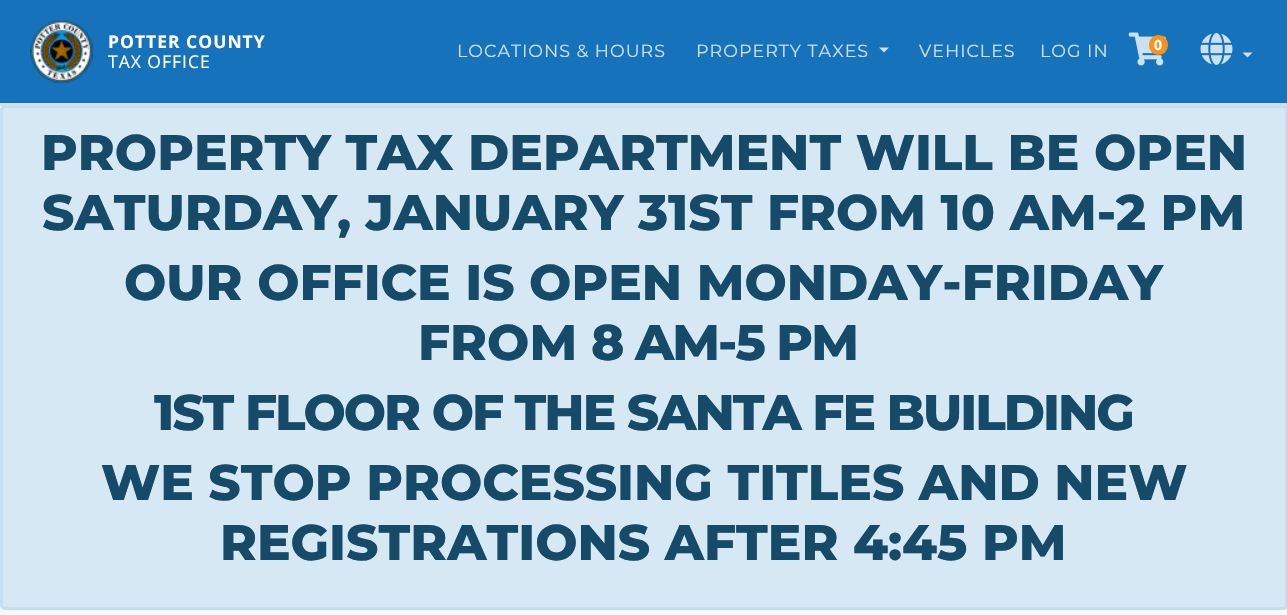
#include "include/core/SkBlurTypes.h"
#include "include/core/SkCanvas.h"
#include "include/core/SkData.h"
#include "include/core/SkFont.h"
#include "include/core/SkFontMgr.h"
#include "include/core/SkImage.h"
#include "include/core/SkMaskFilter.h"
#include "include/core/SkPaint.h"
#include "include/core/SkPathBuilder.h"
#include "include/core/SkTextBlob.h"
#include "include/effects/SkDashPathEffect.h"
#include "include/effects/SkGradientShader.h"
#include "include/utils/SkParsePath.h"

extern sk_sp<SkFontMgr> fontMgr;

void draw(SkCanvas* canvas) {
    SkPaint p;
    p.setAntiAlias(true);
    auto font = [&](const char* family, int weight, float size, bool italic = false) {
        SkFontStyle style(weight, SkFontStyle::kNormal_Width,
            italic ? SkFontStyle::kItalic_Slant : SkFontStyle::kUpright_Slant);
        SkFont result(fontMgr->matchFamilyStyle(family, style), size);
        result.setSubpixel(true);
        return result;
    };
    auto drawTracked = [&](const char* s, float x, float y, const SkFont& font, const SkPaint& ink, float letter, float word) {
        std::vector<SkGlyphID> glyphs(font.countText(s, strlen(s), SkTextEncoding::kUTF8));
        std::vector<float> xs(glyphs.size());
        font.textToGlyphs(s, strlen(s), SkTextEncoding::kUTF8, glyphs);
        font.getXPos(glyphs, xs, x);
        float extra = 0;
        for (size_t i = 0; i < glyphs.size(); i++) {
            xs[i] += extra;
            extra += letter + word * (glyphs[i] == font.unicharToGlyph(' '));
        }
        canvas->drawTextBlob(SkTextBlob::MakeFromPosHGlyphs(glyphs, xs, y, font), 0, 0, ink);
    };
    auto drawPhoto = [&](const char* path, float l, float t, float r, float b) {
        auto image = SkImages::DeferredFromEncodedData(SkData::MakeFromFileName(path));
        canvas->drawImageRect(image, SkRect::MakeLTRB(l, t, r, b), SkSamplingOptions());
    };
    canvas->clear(0xFFF5FAFE);
    p.setColor(0xFF1772BC);
    canvas->drawRect(SkRect::MakeLTRB(0, 0, 1287, 103), p);
    p.setColor(0xFFD5E8F4);
    canvas->drawRoundRect(SkRect::MakeLTRB(1.5f, 106.5f, 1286.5f, 608.5f), 3.5f, 3.5f, p);
    p.setStyle(SkPaint::kStroke_Style);
    p.setStrokeWidth(3);
    p.setColor(0xFFC4DFF0);
    canvas->drawRoundRect(SkRect::MakeLTRB(1.5f, 106.5f, 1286.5f, 608.5f), 3.5f, 3.5f, p);
    p.setStyle(SkPaint::kFill_Style);
    p.setColor(0xFFCDE0F1);
    canvas->drawRect(SkRect::MakeLTRB(0, 103, 1287, 106), p);
    drawPhoto("media/1.png", 30, 20, 93, 83);
    auto font1 = font("Open Sans", 700, 17.5f);
    p.setColor(0xFFFFFFFF);
    drawTracked("POTTER COUNTY", 108, 48, font1, p, 1, 0);
    auto font2 = font("Open Sans", 400, 17.5f);
    drawTracked("TAX OFFICE", 108, 68, font2, p, 1, 0);
    auto font3 = font("Montserrat", 400, 17.5f);
    p.setColor(0xFFCDE0F1);
    drawTracked("LOCATIONS & HOURS", 457, 57, font3, p, 1, 0);
    drawTracked("PROPERTY TAXES", 696, 57, font3, p, 1, 0);
    canvas->drawPath(SkPathBuilder().moveTo(879, 47.5f).lineTo(889, 47.5f).lineTo(884, 52.5f).close().detach(), p);
    drawTracked("VEHICLES", 919, 57, font3, p, 1, 0);
    drawTracked("LOG IN", 1040, 57, font3, p, 1, 0);
    drawPhoto("media/2.png", 1128, 32, 1166, 66);
    p.setColor(0xFFF7921D);
    canvas->drawRoundRect(SkRect::MakeLTRB(1149, 35, 1168, 55), 9.5f, 9.5f, p);
    auto font4 = font("Open Sans", 700, 14);
    p.setColor(0xFFFFFFFF);
    canvas->drawString("0", 1154, 50, font4, p);
    drawPhoto("media/3.png", 1200, 33, 1233, 65);
    p.setColor(0xFFCDE0F1);
    canvas->drawPath(SkPathBuilder().moveTo(1242.5f, 52.5f).lineTo(1252.5f, 52.5f).lineTo(1247.5f, 57.5f).close().detach(), p);
    auto font5 = font("Montserrat", 800, 50);
    p.setColor(0xFF164A69);
    {
        const struct { const char* s; float x, y; } items[] = {
            {"PROPERTY TAX DEPARTMENT WILL BE OPEN", 41, 170},
            {"SATURDAY, JANUARY 31ST FROM 10 AM-2 PM", 42, 230},
            {"OUR OFFICE IS OPEN MONDAY-FRIDAY", 124, 300},
            {"FROM", 418, 360},
        };
        for (auto [s, x, y] : items) {
            canvas->drawString(s, x, y, font5, p);
        }
    }
    drawTracked("8 AM-5 PM", 591, 360, font5, p, -2, 0);
    drawTracked("1ST FLOOR OF THE SANTA FE BUILDING", 154, 430, font5, p, -2, 0);
    canvas->drawString("WE STOP PROCESSING TITLES AND NEW", 101, 500, font5, p);
    canvas->drawString("REGISTRATIONS AFTER 4:45 PM", 220, 560, font5, p);
}
